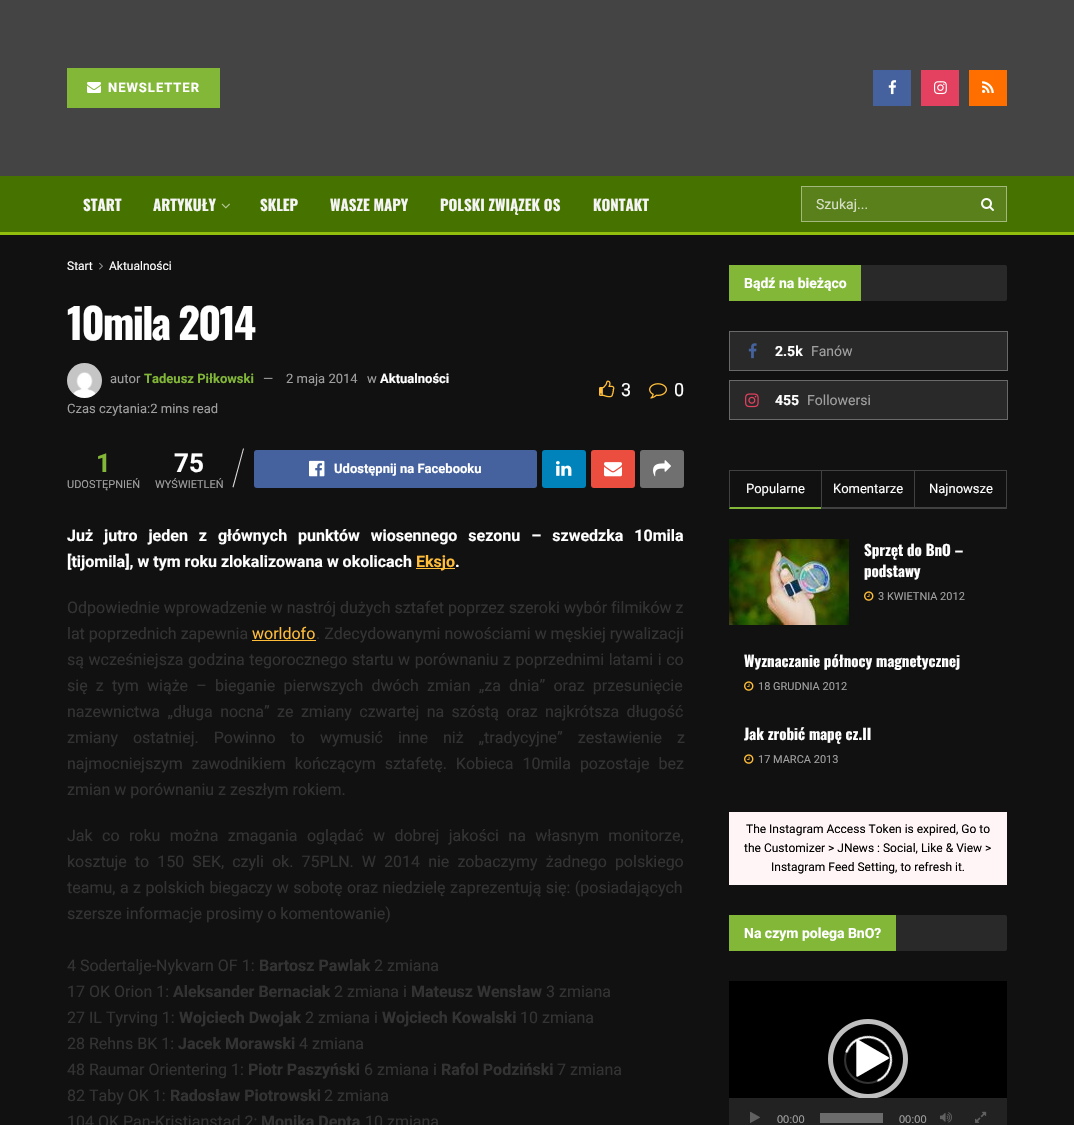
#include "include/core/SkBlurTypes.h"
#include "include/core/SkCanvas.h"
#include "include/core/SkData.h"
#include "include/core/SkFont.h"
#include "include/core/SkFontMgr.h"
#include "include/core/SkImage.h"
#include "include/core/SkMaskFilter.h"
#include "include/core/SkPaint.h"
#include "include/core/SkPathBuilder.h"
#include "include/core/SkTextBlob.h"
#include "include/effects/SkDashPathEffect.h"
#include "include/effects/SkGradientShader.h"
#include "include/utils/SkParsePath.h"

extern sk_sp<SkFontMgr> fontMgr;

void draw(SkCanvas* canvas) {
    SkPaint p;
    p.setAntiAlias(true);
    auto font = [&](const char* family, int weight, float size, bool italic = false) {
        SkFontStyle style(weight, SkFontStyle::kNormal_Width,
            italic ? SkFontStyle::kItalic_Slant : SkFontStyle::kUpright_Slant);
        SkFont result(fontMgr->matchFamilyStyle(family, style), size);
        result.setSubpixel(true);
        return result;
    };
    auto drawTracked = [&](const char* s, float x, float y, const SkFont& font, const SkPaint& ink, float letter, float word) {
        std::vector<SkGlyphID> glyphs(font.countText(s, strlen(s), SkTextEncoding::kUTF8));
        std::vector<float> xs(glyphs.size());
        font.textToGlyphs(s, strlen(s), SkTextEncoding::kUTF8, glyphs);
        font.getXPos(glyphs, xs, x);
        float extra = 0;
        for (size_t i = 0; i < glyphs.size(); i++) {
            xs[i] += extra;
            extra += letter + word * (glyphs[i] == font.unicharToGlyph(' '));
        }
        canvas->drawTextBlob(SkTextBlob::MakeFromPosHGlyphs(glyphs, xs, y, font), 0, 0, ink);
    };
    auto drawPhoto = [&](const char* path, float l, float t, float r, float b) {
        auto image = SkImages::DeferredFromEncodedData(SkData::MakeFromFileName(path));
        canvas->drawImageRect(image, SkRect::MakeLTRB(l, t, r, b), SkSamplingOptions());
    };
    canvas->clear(0xFF444444);
    p.setColor(0xFF82B738);
    canvas->drawRect(SkRect::MakeLTRB(67, 68, 220, 108), p);
    drawPhoto("media/1.png", 87, 82, 101, 93);
    auto font1 = font("Roboto", 700, 13);
    p.setColor(0xFFFFFFFF);
    drawTracked("NEWSLETTER", 108, 92, font1, p, 1, 0);
    p.setColor(0xFF45629F);
    canvas->drawRect(SkRect::MakeLTRB(873, 70, 911, 106), p);
    drawPhoto("media/2.png", 888, 80, 897, 95);
    p.setColor(0xFFE4405F);
    canvas->drawRect(SkRect::MakeLTRB(921, 70, 959, 106), p);
    drawPhoto("media/3.png", 934, 81, 947, 95);
    p.setColor(0xFFFF6F00);
    canvas->drawRect(SkRect::MakeLTRB(969, 70, 1007, 106), p);
    drawPhoto("media/4.png", 982, 81, 994, 93);
    p.setColor(0xFF467200);
    canvas->drawRect(SkRect::MakeLTRB(0, 176, 1074, 232), p);
    p.setColor(0xFF92BF0D);
    canvas->drawRect(SkRect::MakeLTRB(0, 232, 1074, 235), p);
    auto font2 = font("Oswald", 700, 15);
    p.setColor(0xFFF5F5F5);
    canvas->drawString("START", 83, 211, font2, p);
    canvas->drawString("ARTYKUŁY", 153, 211, font2, p);
    drawPhoto("media/5.png", 221, 203, 230, 209);
    {
        const struct { const char* s; float x, y; } items[] = {
            {"SKLEP", 260, 211},
            {"WASZE MAPY", 330, 211},
            {"POLSKI ZWIĄZEK OS", 440, 211},
            {"KONTAKT", 593, 211},
        };
        for (auto [s, x, y] : items) {
            canvas->drawString(s, x, y, font2, p);
        }
    }
    p.setColor(0xFF59801A);
    canvas->drawRect(SkRect::MakeLTRB(801.5f, 186.5f, 1006.5f, 221.5f), p);
    p.setStyle(SkPaint::kStroke_Style);
    p.setStrokeWidth(1);
    p.setColor(0xFFA2B87F);
    canvas->drawRect(SkRect::MakeLTRB(801.5f, 186.5f, 1006.5f, 221.5f), p);
    auto font3 = font("Roboto", 400, 14);
    p.setStyle(SkPaint::kFill_Style);
    p.setColor(0xFFD6DFC6);
    canvas->drawString("Szukaj...", 816, 209, font3, p);
    drawPhoto("media/6.png", 981, 198, 994, 211);
    p.setColor(0xFF111111);
    canvas->drawRect(SkRect::MakeLTRB(0, 235, 1074, 1125), p);
    auto font4 = font("Roboto", 400, 12);
    p.setColor(0xFFFFFFFF);
    canvas->drawString("Start", 67, 270, font4, p);
    drawPhoto("media/7.png", 99, 262, 103, 270);
    canvas->drawString("Aktualności", 109, 270, font4, p);
    auto font5 = font("Oswald", 700, 42);
    drawTracked("10mila 2014", 67, 340, font5, p, -1.75f, 0);
    drawPhoto("media/8.png", 67, 363, 102, 398);
    auto font6 = font("Roboto", 400, 13);
    p.setColor(0xFFA0A0A0);
    canvas->drawString("autor", 110, 383, font6, p);
    p.setColor(0xFF82B738);
    canvas->drawString("Tadeusz Piłkowski", 144, 383, font1, p);
    p.setColor(0xFFA0A0A0);
    {
        const struct { const char* s; float x, y; } items[] = {
            {"—", 263, 383},
            {"2 maja 2014", 286, 383},
            {"w", 367, 383},
        };
        for (auto [s, x, y] : items) {
            canvas->drawString(s, x, y, font6, p);
        }
    }
    p.setColor(0xFFFFFFFF);
    canvas->drawString("Aktualności", 380, 383, font1, p);
    p.setColor(0xFFA0A0A0);
    canvas->drawString("Czas czytania:2 mins read", 67, 413, font6, p);
    drawPhoto("media/9.png", 599, 380, 615, 398);
    auto font7 = font("Roboto", 400, 18);
    p.setColor(0xFFFFFFFF);
    canvas->drawString("3", 621, 396, font7, p);
    drawPhoto("media/10.png", 649, 383, 667, 399);
    canvas->drawString("0", 674, 396, font7, p);
    auto font8 = font("Roboto", 700, 26);
    p.setColor(0xFF82B738);
    canvas->drawString("1", 96, 472, font8, p);
    auto font9 = font("Roboto", 400, 11);
    p.setColor(0xFFA0A0A0);
    canvas->drawString("UDOSTĘPNIEŃ", 67, 488, font9, p);
    p.setColor(0xFFFFFFFF);
    canvas->drawString("75", 174, 472, font8, p);
    p.setColor(0xFFE0E0E0);
    canvas->drawPath(SkPathBuilder().moveTo(243, 448.5f).lineTo(244, 448.5f).lineTo(233.5f, 487.5f).lineTo(232.5f, 487).close().detach(), p);
    p.setColor(0xFFA0A0A0);
    canvas->drawString("WYŚWIETLEŃ", 155, 488, font9, p);
    p.setColor(0xFF45629F);
    canvas->drawRoundRect(SkRect::MakeLTRB(254, 450, 537, 488), 3, 3, p);
    drawPhoto("media/11.png", 309, 460, 325, 477);
    p.setColor(0xFFFFFFFF);
    canvas->drawString("Udostępnij na Facebooku", 334, 473, font1, p);
    p.setColor(0xFF0083BB);
    canvas->drawRoundRect(SkRect::MakeLTRB(542, 450, 586, 488), 3, 3, p);
    drawPhoto("media/12.png", 556, 461, 572, 476);
    p.setColor(0xFFEB4D3F);
    canvas->drawRoundRect(SkRect::MakeLTRB(591, 450, 635, 488), 3, 3, p);
    drawPhoto("media/13.png", 604, 462, 622, 477);
    p.setColor(0xFF707070);
    canvas->drawRoundRect(SkRect::MakeLTRB(640, 450, 684, 488), 3, 3, p);
    drawPhoto("media/14.png", 653, 460, 671, 477);
    auto font10 = font("Roboto", 700, 16);
    p.setColor(0xFFFFFFFF);
    drawTracked("Już jutro jeden z głównych punktów wiosennego sezonu – szwedzka 10mila", 67, 541, font10, p, 0, 7);
    canvas->drawString("[tijomila], w tym roku zlokalizowana w okolicach", 67, 567, font10, p);
    p.setColor(0xFFFFBD3A);
    canvas->drawRect(SkRect::MakeLTRB(416, 568, 455, 569), p);
    canvas->drawString("Eksjo", 416, 567, font10, p);
    p.setColor(0xFFFFFFFF);
    canvas->drawString(".", 455, 567, font10, p);
    auto font11 = font("Roboto", 400, 16);
    p.setColor(0xFF333333);
    canvas->drawString("Odpowiednie wprowadzenie w nastrój dużych sztafet poprzez szeroki wybór filmików z", 67, 613, font11, p);
    canvas->drawString("lat poprzednich zapewnia", 67, 639, font11, p);
    p.setColor(0xFFFFBD3A);
    canvas->drawString("worldofo", 252, 639, font11, p);
    canvas->drawRect(SkRect::MakeLTRB(252, 640, 316, 641), p);
    p.setColor(0xFF333333);
    canvas->drawString(". Zdecydowanymi nowościami w męskiej rywalizacji", 316, 639, font11, p);
    drawTracked("są wcześniejsza godzina tegorocznego startu w porównaniu z poprzednimi latami i co", 67, 665, font11, p, 0, 0.6f);
    drawTracked("się z tym wiąże – bieganie pierwszych dwóch zmian „za dnia” oraz przesunięcie", 67, 691, font11, p, 0, 4.25f);
    drawTracked("nazewnictwa „długa nocna” ze zmiany czwartej na szóstą oraz najkrótsza długość", 67, 717, font11, p, 0, 3.4f);
    drawTracked("zmiany ostatniej. Powinno to wymusić inne niż „tradycyjne” zestawienie z", 67, 743, font11, p, 0, 11);
    drawTracked("najmocniejszym zawodnikiem kończącym sztafetę. Kobieca 10mila pozostaje bez", 67, 769, font11, p, 0, 5);
    canvas->drawString("zmian w porównaniu z zeszłym rokiem.", 67, 795, font11, p);
    drawTracked("Jak co roku można zmagania oglądać w dobrej jakości na własnym monitorze,", 67, 841, font11, p, 0, 5.4f);
    drawTracked("kosztuje to 150 SEK, czyli ok. 75PLN. W 2014 nie zobaczymy żadnego polskiego", 67, 867, font11, p, 0, 4.1f);
    drawTracked("teamu, a z polskich biegaczy w sobotę oraz niedzielę zaprezentują się: (posiadających", 67, 893, font11, p, 0, 0.5f);
    canvas->drawString("szersze informacje prosimy o komentowanie)", 67, 919, font11, p);
    canvas->drawString("4 Sodertalje-Nykvarn OF 1:", 67, 971, font11, p);
    canvas->drawString("Bartosz Pawlak", 259, 971, font10, p);
    canvas->drawString("2 zmiana", 374, 971, font11, p);
    canvas->drawString("17 OK Orion 1:", 67, 997, font11, p);
    canvas->drawString("Aleksander Bernaciak", 173, 997, font10, p);
    canvas->drawString("2 zmiana i", 334, 997, font11, p);
    canvas->drawString("Mateusz Wensław", 411, 997, font10, p);
    canvas->drawString("3 zmiana", 546, 997, font11, p);
    canvas->drawString("27 IL Tyrving 1:", 67, 1023, font11, p);
    canvas->drawString("Wojciech Dwojak", 179, 1023, font10, p);
    canvas->drawString("2 zmiana i", 305, 1023, font11, p);
    canvas->drawString("Wojciech Kowalski", 382, 1023, font10, p);
    canvas->drawString("10 zmiana", 520, 1023, font11, p);
    canvas->drawString("28 Rehns BK 1:", 67, 1049, font11, p);
    canvas->drawString("Jacek Morawski", 178, 1049, font10, p);
    canvas->drawString("4 zmiana", 299, 1049, font11, p);
    canvas->drawString("48 Raumar Orientering 1:", 67, 1075, font11, p);
    canvas->drawString("Piotr Paszyński", 248, 1075, font10, p);
    canvas->drawString("6 zmiana i", 364, 1075, font11, p);
    canvas->drawString("Rafol Podziński", 441, 1075, font10, p);
    canvas->drawString("7 zmiana", 557, 1075, font11, p);
    canvas->drawString("82 Taby OK 1:", 67, 1101, font11, p);
    canvas->drawString("Radosław Piotrowski", 170, 1101, font10, p);
    canvas->drawString("2 zmiana", 324, 1101, font11, p);
    canvas->drawString("104 OK Pan-Kristianstad 2:", 67, 1127, font11, p);
    canvas->drawString("Monika Depta", 261, 1127, font10, p);
    canvas->drawString("10 zmiana", 365, 1127, font11, p);
    p.setColor(0xFF292929);
    canvas->drawRoundRect(SkRect::MakeLTRB(729, 265, 1007, 301), 2, 2, p);
    p.setColor(0xFF82B738);
    canvas->drawRect(SkRect::MakeLTRB(729, 265, 861, 301), p);
    auto font12 = font("Roboto", 700, 14);
    p.setColor(0xFFFFFFFF);
    canvas->drawString("Bądź na bieżąco", 744, 288, font12, p);
    p.setColor(0xFF292929);
    canvas->drawRect(SkRect::MakeLTRB(729.5f, 331.5f, 1007.5f, 370.5f), p);
    p.setStyle(SkPaint::kStroke_Style);
    p.setColor(0xFF696969);
    canvas->drawRect(SkRect::MakeLTRB(729.5f, 331.5f, 1007.5f, 370.5f), p);
    drawPhoto("media/15.png", 748, 343, 757, 359);
    p.setStyle(SkPaint::kFill_Style);
    p.setColor(0xFFFFFFFF);
    canvas->drawString("2.5k", 775, 356, font12, p);
    p.setColor(0xFFA0A0A0);
    canvas->drawString("Fanów", 811, 356, font3, p);
    p.setColor(0xFF292929);
    canvas->drawRect(SkRect::MakeLTRB(729.5f, 380.5f, 1007.5f, 419.5f), p);
    p.setStyle(SkPaint::kStroke_Style);
    p.setColor(0xFF696969);
    canvas->drawRect(SkRect::MakeLTRB(729.5f, 380.5f, 1007.5f, 419.5f), p);
    drawPhoto("media/16.png", 745, 393, 759, 408);
    p.setStyle(SkPaint::kFill_Style);
    p.setColor(0xFFFFFFFF);
    canvas->drawString("455", 775, 405, font12, p);
    p.setColor(0xFFA0A0A0);
    canvas->drawString("Followersi", 807, 405, font3, p);
    p.setColor(0xFF414141);
    canvas->drawPath(SkPathBuilder().moveTo(729, 470).lineTo(821, 470).lineTo(821, 471).lineTo(730, 471).close().detach(), p);
    p.setColor(0xFF82B738);
    canvas->drawPath(SkPathBuilder().moveTo(821, 509).lineTo(729, 509).lineTo(730, 507).lineTo(821, 507).close().detach(), p);
    p.setColor(0x33FFFFFF);
    canvas->drawPath(SkPathBuilder().moveTo(729, 509).lineTo(729, 470).lineTo(730, 471).lineTo(730, 507).close().detach(), p);
    p.setColor(0xFFFFFFFF);
    canvas->drawString("Popularne", 746, 493, font6, p);
    p.setColor(0xFF414141);
    canvas->drawPath(SkPathBuilder().moveTo(821, 470).lineTo(914, 470).lineTo(914, 471).lineTo(822, 471).close().detach(), p);
    canvas->drawPath(SkPathBuilder().moveTo(914, 509).lineTo(821, 509).lineTo(822, 507).lineTo(914, 507).close().detach(), p);
    p.setColor(0x33FFFFFF);
    canvas->drawPath(SkPathBuilder().moveTo(821, 509).lineTo(821, 470).lineTo(822, 471).lineTo(822, 507).close().detach(), p);
    p.setColor(0xFFFFFFFF);
    canvas->drawString("Komentarze", 833, 493, font6, p);
    p.setColor(0xFF414141);
    canvas->drawPath(SkPathBuilder().moveTo(914, 470).lineTo(1007, 470).lineTo(1006, 471).lineTo(915, 471).close().detach(), p);
    p.setColor(0x33FFFFFF);
    canvas->drawPath(SkPathBuilder().moveTo(1007, 470).lineTo(1007, 509).lineTo(1006, 507).lineTo(1006, 471).close().detach(), p);
    canvas->drawPath(SkPathBuilder().moveTo(1007, 509).lineTo(914, 509).lineTo(915, 507).lineTo(1006, 507).close().detach(), p);
    canvas->drawPath(SkPathBuilder().moveTo(914, 509).lineTo(914, 470).lineTo(915, 471).lineTo(915, 507).close().detach(), p);
    p.setColor(0xFFFFFFFF);
    canvas->drawString("Najnowsze", 929, 493, font6, p);
    drawPhoto("media/17.png", 729, 539, 849, 625);
    canvas->drawString("Sprzęt do BnO –", 864, 556, font2, p);
    canvas->drawString("podstawy", 864, 577, font2, p);
    drawPhoto("media/18.png", 864, 591, 874, 601);
    p.setColor(0xFFA0A0A0);
    canvas->drawString("3 KWIETNIA 2012", 878, 600, font9, p);
    p.setColor(0xFFFFFFFF);
    canvas->drawString("Wyznaczanie północy magnetycznej", 744, 667, font2, p);
    drawPhoto("media/18.png", 744, 681, 754, 691);
    p.setColor(0xFFA0A0A0);
    canvas->drawString("18 GRUDNIA 2012", 758, 690, font9, p);
    p.setColor(0xFFFFFFFF);
    canvas->drawString("Jak zrobić mapę cz.II", 744, 740, font2, p);
    drawPhoto("media/18.png", 744, 754, 754, 764);
    p.setColor(0xFFA0A0A0);
    canvas->drawString("17 MARCA 2013", 758, 763, font9, p);
    p.setColor(0xFFFFF5F6);
    canvas->drawRect(SkRect::MakeLTRB(729, 812, 1007, 885), p);
    p.setColor(0xFF000000);
    {
        const struct { const char* s; float x, y; } items[] = {
            {"The Instagram Access Token is expired, Go to", 746, 833},
            {"the Customizer > JNews : Social, Like & View >", 744, 852},
            {"Instagram Feed Setting, to refresh it.", 771, 871},
        };
        for (auto [s, x, y] : items) {
            canvas->drawString(s, x, y, font4, p);
        }
    }
    p.setColor(0xFF292929);
    canvas->drawRoundRect(SkRect::MakeLTRB(729, 915, 1007, 951), 2, 2, p);
    p.setColor(0xFF82B738);
    canvas->drawRect(SkRect::MakeLTRB(729, 915, 896, 951), p);
    p.setColor(0xFFFFFFFF);
    canvas->drawString("Na czym polega BnO?", 744, 938, font12, p);
    drawPhoto("media/19.png", 729, 981, 1007, 1098);
    drawPhoto("media/20.png", 828, 1019, 908, 1098);
    p.setColor(0xFF222222);
    canvas->drawRect(SkRect::MakeLTRB(729, 1098, 1007, 1125), p);
    drawPhoto("media/21.png", 750, 1111, 760, 1123);
    auto font13 = font("Liberation Sans", 400, 11);
    p.setColor(0xFFA0A0A0);
    canvas->drawString("00:00", 777, 1123, font13, p);
    p.setColor(0xFF6B6B6B);
    canvas->drawRect(SkRect::MakeLTRB(820, 1113, 883, 1123), p);
    p.setColor(0xFFA0A0A0);
    canvas->drawString("00:00", 899, 1123, font13, p);
    drawPhoto("media/22.png", 940, 1112, 952, 1123);
    drawPhoto("media/23.png", 975, 1111, 987, 1123);
}
